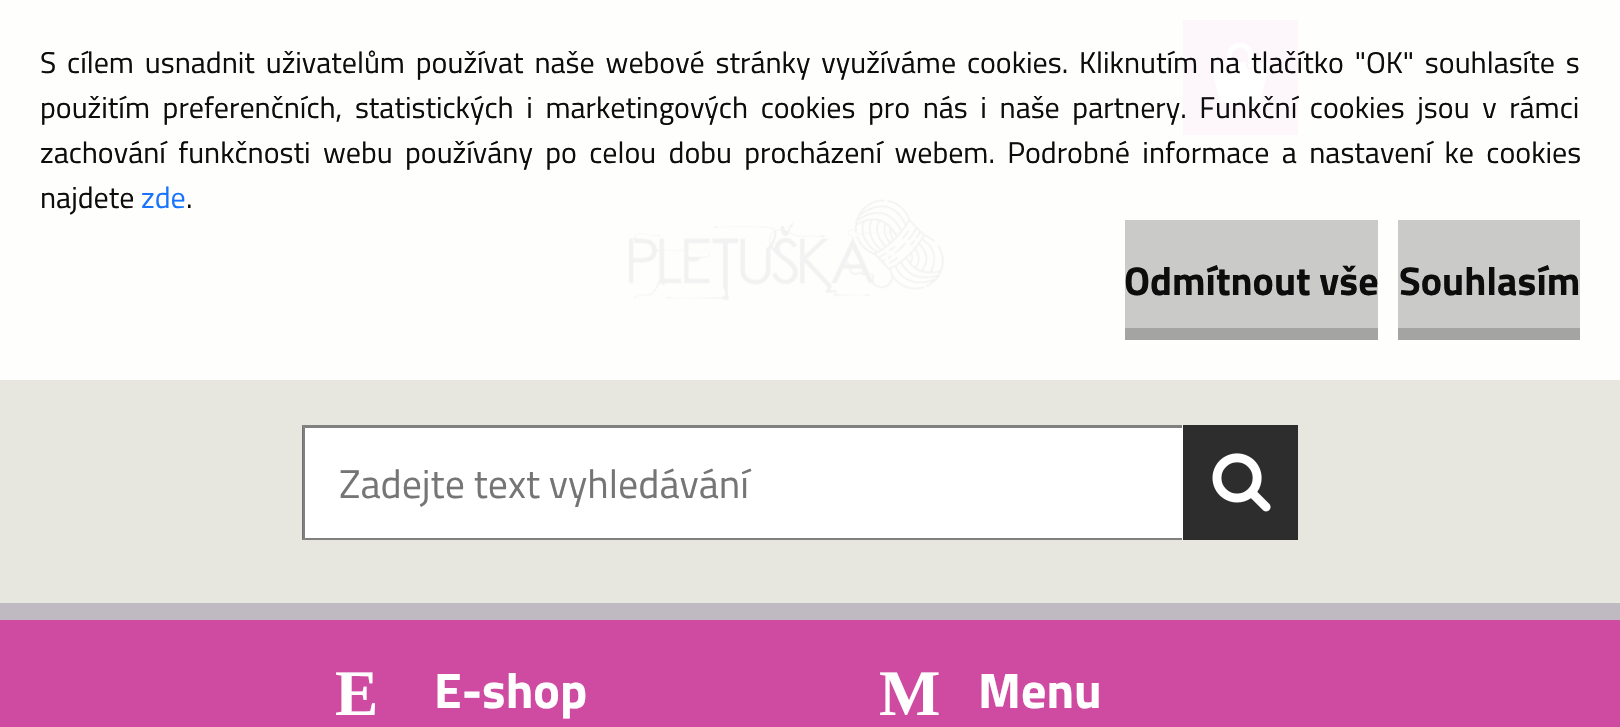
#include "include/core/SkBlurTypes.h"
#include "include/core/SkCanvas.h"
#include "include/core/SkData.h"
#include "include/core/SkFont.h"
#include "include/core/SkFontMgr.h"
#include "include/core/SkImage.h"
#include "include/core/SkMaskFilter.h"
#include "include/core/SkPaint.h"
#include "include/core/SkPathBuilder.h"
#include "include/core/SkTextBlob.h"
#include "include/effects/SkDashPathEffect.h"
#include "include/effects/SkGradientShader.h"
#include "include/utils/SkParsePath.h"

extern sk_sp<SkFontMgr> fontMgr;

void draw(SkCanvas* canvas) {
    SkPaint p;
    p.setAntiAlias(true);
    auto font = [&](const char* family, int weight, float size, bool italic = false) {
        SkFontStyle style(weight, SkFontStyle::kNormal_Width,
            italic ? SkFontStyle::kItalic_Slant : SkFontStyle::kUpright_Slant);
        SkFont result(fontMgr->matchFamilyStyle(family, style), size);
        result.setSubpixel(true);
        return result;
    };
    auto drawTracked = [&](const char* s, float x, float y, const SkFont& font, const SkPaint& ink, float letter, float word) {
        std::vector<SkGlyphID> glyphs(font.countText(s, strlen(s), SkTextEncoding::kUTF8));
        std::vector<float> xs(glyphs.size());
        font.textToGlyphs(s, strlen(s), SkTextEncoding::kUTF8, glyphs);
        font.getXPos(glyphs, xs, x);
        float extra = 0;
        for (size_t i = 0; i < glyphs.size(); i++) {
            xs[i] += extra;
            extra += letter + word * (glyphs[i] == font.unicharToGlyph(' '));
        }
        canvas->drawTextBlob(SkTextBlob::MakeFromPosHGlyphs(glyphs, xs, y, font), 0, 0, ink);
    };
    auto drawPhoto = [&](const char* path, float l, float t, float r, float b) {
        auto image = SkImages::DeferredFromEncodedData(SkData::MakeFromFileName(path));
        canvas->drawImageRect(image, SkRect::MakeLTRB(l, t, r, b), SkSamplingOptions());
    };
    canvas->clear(0xFFCF4BA2);
    p.setColor(0xFFFEFEFD);
    canvas->drawRect(SkRect::MakeLTRB(0, 0, 1620, 380), p);
    p.setColor(0xFFFDF6FA);
    canvas->drawRect(SkRect::MakeLTRB(1183, 20, 1298, 135), p);
    drawPhoto("media/3.png", 1210, 42, 1270, 103);
    auto font1 = font("Titillium Web", 400, 30);
    p.setColor(0xFF0D0D0D);
    drawTracked("S cílem usnadnit uživatelům používat naše webové stránky využíváme cookies. Kliknutím na tlačítko \"OK\" souhlasíte s", 40, 73, font1, p, 0, 4.25f);
    drawTracked("použitím preferenčních, statistických i marketingových cookies pro nás i naše partnery. Funkční cookies jsou v rámci", 40, 118, font1, p, 0, 6);
    drawTracked("zachování funkčnosti webu používány po celou dobu procházení webem. Podrobné informace a nastavení ke cookies", 40, 163, font1, p, 0, 5.75f);
    canvas->drawString("najdete", 40, 208, font1, p);
    p.setColor(0xFF1874FC);
    canvas->drawString("zde", 141, 208, font1, p);
    p.setColor(0xFF0D0D0D);
    canvas->drawString(".", 186, 208, font1, p);
    p.setColor(0xFFCACAC9);
    canvas->drawRect(SkRect::MakeLTRB(1125, 220, 1378, 328), p);
    p.setColor(0xFFA4A4A3);
    canvas->drawRect(SkRect::MakeLTRB(1125, 328, 1378, 340), p);
    auto font2 = font("Titillium Web", 700, 40);
    p.setColor(0xFF0D0D0D);
    canvas->drawString("Odmítnout vše", 1124, 295, font2, p);
    p.setColor(0xFFCACAC9);
    canvas->drawRect(SkRect::MakeLTRB(1398, 220, 1580, 328), p);
    p.setColor(0xFFA4A4A3);
    canvas->drawRect(SkRect::MakeLTRB(1398, 328, 1580, 340), p);
    p.setColor(0xFF0D0D0D);
    canvas->drawString("Souhlasím", 1399, 295, font2, p);
    p.setColor(0xFFE7E7DF);
    canvas->drawRect(SkRect::MakeLTRB(0, 380, 1620, 603), p);
    p.setColor(0xFFBFBAC1);
    canvas->drawRect(SkRect::MakeLTRB(0, 603, 1620, 620), p);
    drawPhoto("media/1.png", 628, 199, 945, 302);
    p.setColor(0xFFFFFFFF);
    canvas->drawRect(SkRect::MakeLTRB(303, 425, 1183, 540), p);
    p.setColor(0xFF808080);
    canvas->drawPath(SkPathBuilder().moveTo(302, 425).lineTo(1182, 425).lineTo(1182, 428).lineTo(305, 428).close().detach(), p);
    canvas->drawPath(SkPathBuilder().moveTo(1182, 540).lineTo(302, 540).lineTo(305, 538).lineTo(1182, 538).close().detach(), p);
    p.setColor(0x80000000);
    canvas->drawPath(SkPathBuilder().moveTo(302, 540).lineTo(302, 425).lineTo(305, 428).lineTo(305, 538).close().detach(), p);
    auto font3 = font("Titillium Web", 400, 40);
    p.setColor(0xFF757575);
    canvas->drawString("Zadejte text vyhledávání", 339, 498, font3, p);
    p.setColor(0xFF2D2D2D);
    canvas->drawRect(SkRect::MakeLTRB(1183, 425, 1298, 540), p);
    drawPhoto("media/2.png", 1212, 453, 1271, 512);
    auto font4 = font("Liberation Serif", 700, 65);
    p.setColor(0xFFFFFFFF);
    canvas->drawString("E", 335, 715, font4, p);
    auto font5 = font("Titillium Web", 700, 50);
    canvas->drawString("E-shop", 434, 708, font5, p);
    canvas->drawString("M", 879, 715, font4, p);
    canvas->drawString("Menu", 978, 708, font5, p);
}
